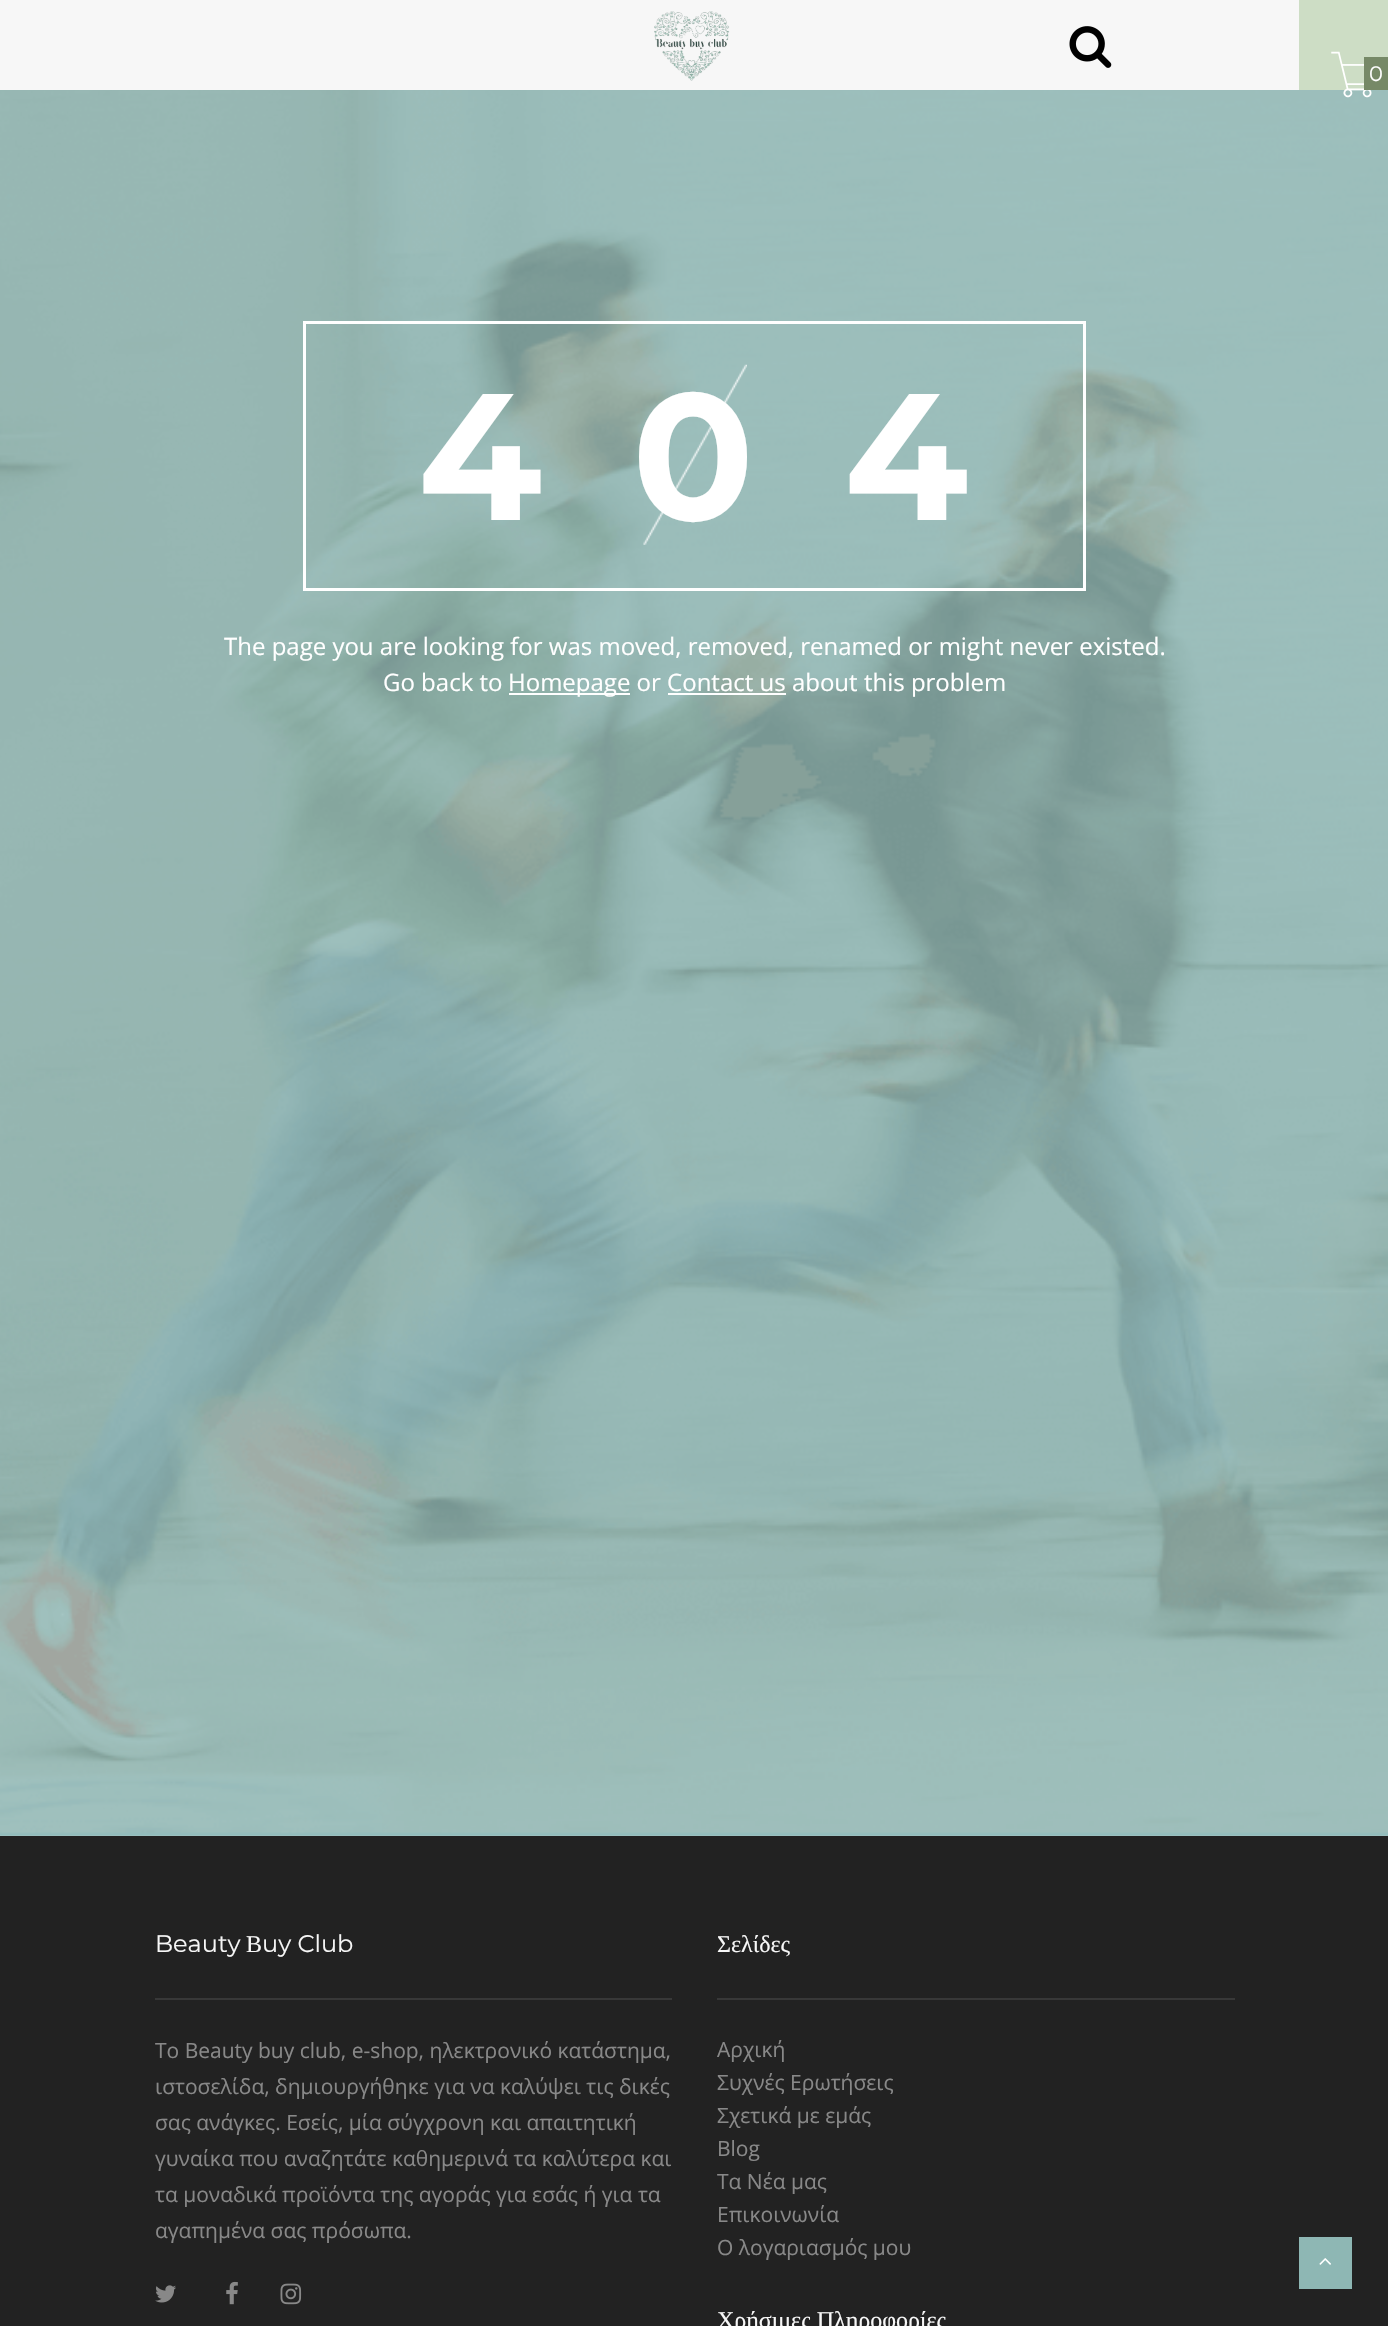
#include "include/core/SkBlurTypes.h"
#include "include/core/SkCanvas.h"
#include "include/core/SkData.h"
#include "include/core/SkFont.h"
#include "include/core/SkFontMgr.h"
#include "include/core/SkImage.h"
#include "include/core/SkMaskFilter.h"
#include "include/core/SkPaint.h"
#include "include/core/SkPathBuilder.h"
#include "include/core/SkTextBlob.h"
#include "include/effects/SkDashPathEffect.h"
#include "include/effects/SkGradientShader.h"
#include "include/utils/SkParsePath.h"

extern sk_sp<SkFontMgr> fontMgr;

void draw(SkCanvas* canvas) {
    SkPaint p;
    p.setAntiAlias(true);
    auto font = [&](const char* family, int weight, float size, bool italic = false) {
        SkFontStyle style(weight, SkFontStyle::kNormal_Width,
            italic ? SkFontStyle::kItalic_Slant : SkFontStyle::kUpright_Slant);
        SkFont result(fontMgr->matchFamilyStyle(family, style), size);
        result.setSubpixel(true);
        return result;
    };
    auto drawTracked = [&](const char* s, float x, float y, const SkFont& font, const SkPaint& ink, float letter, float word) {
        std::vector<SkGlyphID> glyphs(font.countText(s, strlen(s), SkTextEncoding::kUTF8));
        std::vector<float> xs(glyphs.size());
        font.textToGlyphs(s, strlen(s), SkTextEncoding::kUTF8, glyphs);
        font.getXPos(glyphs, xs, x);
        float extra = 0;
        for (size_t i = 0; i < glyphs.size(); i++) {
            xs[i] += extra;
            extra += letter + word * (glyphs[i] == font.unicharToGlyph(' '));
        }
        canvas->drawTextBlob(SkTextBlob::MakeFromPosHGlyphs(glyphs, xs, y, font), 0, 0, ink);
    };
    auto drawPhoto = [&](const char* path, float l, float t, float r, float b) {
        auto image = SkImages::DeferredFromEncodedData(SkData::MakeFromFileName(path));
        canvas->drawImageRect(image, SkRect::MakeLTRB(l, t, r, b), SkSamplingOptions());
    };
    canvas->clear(0xFFA5C5C3);
    p.setColor(0xFFF7F7F7);
    canvas->drawRect(SkRect::MakeLTRB(0, 0, 1299, 90), p);
    drawPhoto("media/1.png", 654, 11, 730, 81);
    drawPhoto("media/2.png", 1069, 26, 1112, 68);
    p.setColor(0xFFCDDDC5);
    canvas->drawRect(SkRect::MakeLTRB(1299, 0, 1388, 90), p);
    drawPhoto("media/4.png", 0, 90, 1388, 1836);
    drawPhoto("media/3.png", 1331, 51, 1372, 98);
    p.setColor(0xFF768967);
    canvas->drawRect(SkRect::MakeLTRB(1364, 57, 1388, 90), p);
    auto font1 = font("Montserrat", 100, 21);
    p.setColor(0xFFFFFFFF);
    canvas->drawString("0", 1369, 81, font1, p);
    drawPhoto("media/5.png", 643, 364, 747, 545);
    p.setStyle(SkPaint::kStroke_Style);
    p.setStrokeWidth(3);
    canvas->drawRect(SkRect::MakeLTRB(304.5f, 322.5f, 1084.5f, 589.5f), p);
    auto font2 = font("Montserrat", 700, 180);
    p.setStyle(SkPaint::kFill_Style);
    drawTracked("404", 418, 520, font2, p, 90, 0);
    auto font3 = font("Open Sans", 400, 24);
    canvas->drawString("The page you are looking for was moved, removed, renamed or might never existed.", 224, 655, font3, p);
    canvas->drawString("Go back to", 383, 691, font3, p);
    canvas->drawRect(SkRect::MakeLTRB(509, 693, 630, 695), p);
    canvas->drawString("Homepage or Contact us about this problem", 508, 691, font3, p);
    {
        const struct { float l, t, r, b; SkColor color; } items[] = {
            {668, 693, 786, 695, 0xFFFFFFFF},
            {0, 1836, 1388, 2326, 0xFF222222},
            {155, 1998, 672, 2000, 0xFF383838},
        };
        for (auto [l, t, r, b, color] : items) {
            p.setColor(color);
            canvas->drawRect(SkRect::MakeLTRB(l, t, r, b), p);
        }
    }
    auto font4 = font("Montserrat", 100, 24);
    p.setColor(0xFFF7F7F7);
    canvas->drawString("Beauty", 155, 1952, font4, p);
    auto font5 = font("Liberation Serif", 400, 24);
    canvas->drawString("Β", 246, 1952, font5, p);
    canvas->drawString("uy Club", 262, 1952, font4, p);
    auto font6 = font("Open Sans", 400, 21);
    p.setColor(0xFF888888);
    {
        const struct { const char* s; float x, y; } items[] = {
            {"Το Beauty buy club, e-shop, ηλεκτρονικό κατάστημα,", 155, 2058},
            {"ιστοσελίδα, δημιουργήθηκε για να καλύψει τις δικές", 155, 2094},
            {"σας ανάγκες. Εσείς, μία σύγχρονη και απαιτητική", 155, 2130},
            {"γυναίκα που αναζητάτε καθημερινά τα καλύτερα και", 155, 2166},
            {"τα μοναδικά προϊόντα της αγοράς για εσάς ή για τα", 155, 2202},
            {"αγαπημένα σας πρόσωπα.", 155, 2238},
        };
        for (auto [s, x, y] : items) {
            canvas->drawString(s, x, y, font6, p);
        }
    }
    drawPhoto("media/6.png", 155, 2285, 176, 2303);
    drawPhoto("media/7.png", 226, 2281, 238, 2305);
    drawPhoto("media/8.png", 280, 2283, 302, 2305);
    p.setColor(0xFF383838);
    canvas->drawRect(SkRect::MakeLTRB(717, 1998, 1235, 2000), p);
    p.setColor(0xFFF7F7F7);
    canvas->drawString("Σελίδες", 717, 1952, font5, p);
    p.setColor(0xFF888888);
    {
        const struct { const char* s; float x, y; } items[] = {
            {"Αρχική", 717, 2057},
            {"Συχνές Ερωτήσεις", 717, 2090},
            {"Σχετικά με εμάς", 717, 2123},
            {"Blog", 717, 2156},
            {"Τα Νέα μας", 717, 2189},
            {"Επικοινωνία", 717, 2222},
            {"O λογαριασμός μου", 717, 2255},
        };
        for (auto [s, x, y] : items) {
            canvas->drawString(s, x, y, font6, p);
        }
    }
    p.setColor(0xFFF7F7F7);
    canvas->drawString("Χρήσιμες Πληροφορίες", 717, 2328, font5, p);
    p.setColor(0xFF8EB7B4);
    canvas->drawRect(SkRect::MakeLTRB(1299, 2237, 1352, 2289), p);
    drawPhoto("media/9.png", 1319, 2258, 1331, 2265);
}
